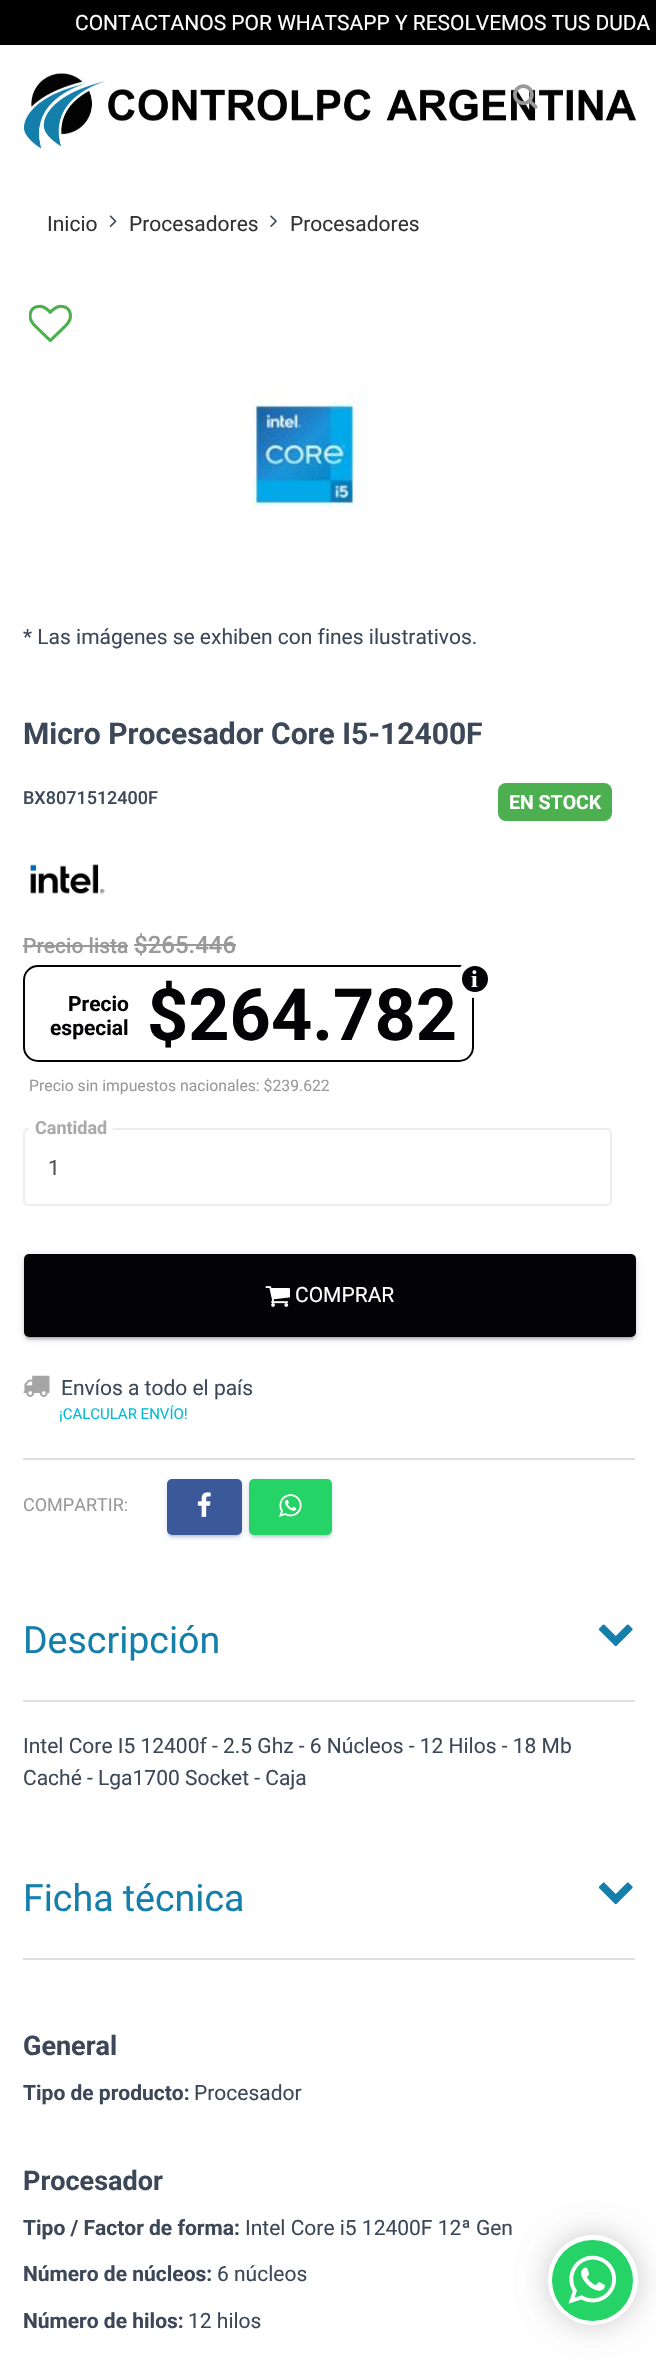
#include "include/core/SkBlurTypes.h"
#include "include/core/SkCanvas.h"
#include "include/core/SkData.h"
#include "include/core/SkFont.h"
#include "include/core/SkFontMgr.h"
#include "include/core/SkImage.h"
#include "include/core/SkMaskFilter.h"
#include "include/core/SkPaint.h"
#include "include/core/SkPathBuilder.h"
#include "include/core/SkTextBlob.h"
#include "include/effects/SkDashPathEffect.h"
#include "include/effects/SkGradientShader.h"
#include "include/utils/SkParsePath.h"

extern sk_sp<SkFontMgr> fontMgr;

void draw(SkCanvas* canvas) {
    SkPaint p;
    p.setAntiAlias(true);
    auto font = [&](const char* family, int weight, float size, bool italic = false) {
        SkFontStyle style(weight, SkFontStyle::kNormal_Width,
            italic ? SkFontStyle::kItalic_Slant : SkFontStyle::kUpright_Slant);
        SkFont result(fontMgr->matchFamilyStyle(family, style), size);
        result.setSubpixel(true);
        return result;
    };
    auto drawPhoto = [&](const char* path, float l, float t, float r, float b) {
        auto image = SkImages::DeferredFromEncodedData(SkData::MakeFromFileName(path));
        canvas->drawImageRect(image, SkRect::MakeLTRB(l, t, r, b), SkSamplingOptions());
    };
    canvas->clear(0xFFFFFFFF);
    p.setColor(0xFF000000);
    canvas->drawRect(SkRect::MakeLTRB(0, 0, 656, 45), p);
    auto font1 = font("Roboto", 400, 21);
    p.setColor(0xFFFFFFFF);
    canvas->drawString("CONTACTANOS POR WHATSAPP Y RESOLVEMOS TUS DUDA", 75, 30, font1, p);
    drawPhoto("media/1.png", 24, 73, 636, 149);
    drawPhoto("media/2.png", 513, 84, 538, 109);
    p.setColor(0xFF333333);
    canvas->drawString("Inicio", 47, 231, font1, p);
    drawPhoto("media/3.png", 109, 215, 117, 227);
    canvas->drawString("Procesadores", 129, 231, font1, p);
    drawPhoto("media/4.png", 270, 215, 277, 227);
    canvas->drawString("Procesadores", 290, 231, font1, p);
    drawPhoto("media/5.png", 29, 304, 72, 343);
    drawPhoto("media/6.png", 250, 390, 370, 511);
    p.setColor(0xFF3C4858);
    canvas->drawString("* Las imágenes se exhiben con fines ilustrativos.", 23, 644, font1, p);
    auto font2 = font("Roboto", 700, 30);
    canvas->drawString("Micro Procesador Core I5-12400F", 23, 744, font2, p);
    auto font3 = font("Roboto", 500, 18);
    canvas->drawString("BX8071512400F", 23, 804, font3, p);
    p.setColor(0xFF4CAF50);
    canvas->drawRoundRect(SkRect::MakeLTRB(498, 783, 612, 821), 8, 8, p);
    auto font4 = font("Roboto", 700, 19.5f);
    p.setColor(0xFFFFFFFF);
    canvas->drawString("EN STOCK", 509, 809, font4, p);
    drawPhoto("media/7.png", 30, 863, 105, 894);
    auto font5 = font("Roboto", 500, 21);
    p.setColor(0xFF999999);
    canvas->drawString("Precio lista", 23, 953, font5, p);
    canvas->drawRect(SkRect::MakeLTRB(23, 945, 128, 947), p);
    auto font6 = font("Roboto", 500, 24);
    canvas->drawString("$265.446", 134, 953, font6, p);
    canvas->drawRect(SkRect::MakeLTRB(134, 944, 236, 946), p);
    p.setStyle(SkPaint::kStroke_Style);
    p.setStrokeWidth(2);
    p.setColor(0xFF030305);
    canvas->drawRoundRect(SkRect::MakeLTRB(24, 966, 473, 1061), 14, 14, p);
    p.setStyle(SkPaint::kFill_Style);
    canvas->drawCircle(475, 979, 16, p);
    p.setStyle(SkPaint::kStroke_Style);
    p.setStrokeWidth(6);
    p.setColor(0xFFFFFFFF);
    canvas->drawCircle(475, 979, 16, p);
    auto font7 = font("Liberation Serif", 700, 24);
    p.setStyle(SkPaint::kFill_Style);
    canvas->drawString("i", 471, 987, font7, p);
    auto font8 = font("Roboto", 700, 21);
    p.setColor(0xFF030305);
    canvas->drawString("Precio", 68, 1011, font8, p);
    canvas->drawString("especial", 50, 1035, font8, p);
    auto font9 = font("Roboto", 700, 72);
    canvas->drawString("$264.782", 147, 1040, font9, p);
    auto font10 = font("Roboto", 400, 15.75f);
    p.setColor(0xFF999999);
    canvas->drawString("Precio sin impuestos nacionales: $239.622", 29, 1091, font10, p);
    p.setStyle(SkPaint::kStroke_Style);
    p.setStrokeWidth(2);
    p.setColor(0xFFEEEEEE);
    canvas->drawRoundRect(SkRect::MakeLTRB(24, 1129, 611, 1205), 4, 4, p);
    p.setStyle(SkPaint::kFill_Style);
    p.setColor(0xFFFFFFFF);
    canvas->drawRect(SkRect::MakeLTRB(29, 1128, 113, 1130), p);
    auto font11 = font("Roboto", 700, 18);
    p.setColor(0xFFAAAAAA);
    canvas->drawString("Cantidad", 35, 1134, font11, p);
    p.setColor(0xFF495057);
    canvas->drawString("1", 48, 1175, font1, p);
    p.setColor(0x1F000000);
    p.setMaskFilter(SkMaskFilter::MakeBlur(kNormal_SkBlurStyle, 4));
    canvas->drawRoundRect(SkRect::MakeLTRB(24, 1256, 636, 1338), 5, 5, p);
    p.setMaskFilter(nullptr);
    p.setColor(0x33000000);
    p.setMaskFilter(SkMaskFilter::MakeBlur(kNormal_SkBlurStyle, 1));
    canvas->drawRoundRect(SkRect::MakeLTRB(27, 1262, 633, 1338), 1.5f, 1.5f, p);
    p.setMaskFilter(nullptr);
    p.setColor(0x24000000);
    p.setMaskFilter(SkMaskFilter::MakeBlur(kNormal_SkBlurStyle, 1.5f));
    canvas->drawRoundRect(SkRect::MakeLTRB(24, 1257, 636, 1340), 5, 5, p);
    p.setMaskFilter(nullptr);
    p.setColor(0xFF030305);
    canvas->drawRoundRect(SkRect::MakeLTRB(24, 1254, 636, 1337), 5, 5, p);
    drawPhoto("media/8.png", 265, 1286, 290, 1307);
    p.setColor(0xFFFFFFFF);
    canvas->drawString("COMPRAR", 295, 1302, font1, p);
    drawPhoto("media/9.png", 23, 1375, 50, 1397);
    p.setColor(0xFF3C4858);
    canvas->drawString("Envíos a todo el país", 61, 1395, font1, p);
    auto font12 = font("Roboto", 400, 15);
    p.setColor(0xFF00BCD4);
    canvas->drawString("¡CALCULAR ENVÍO!", 59, 1419, font12, p);
    p.setColor(0xFFDEDEDE);
    canvas->drawRect(SkRect::MakeLTRB(23, 1458, 635, 1460), p);
    auto font13 = font("Roboto", 400, 18);
    p.setColor(0xFF999999);
    canvas->drawString("COMPARTIR:", 23, 1511, font13, p);
    p.setColor(0x1F3B5998);
    p.setMaskFilter(SkMaskFilter::MakeBlur(kNormal_SkBlurStyle, 4));
    canvas->drawRoundRect(SkRect::MakeLTRB(167, 1481, 242, 1536), 5, 5, p);
    p.setMaskFilter(nullptr);
    p.setColor(0x333B5998);
    p.setMaskFilter(SkMaskFilter::MakeBlur(kNormal_SkBlurStyle, 1));
    canvas->drawRoundRect(SkRect::MakeLTRB(170, 1487, 239, 1536), 1.5f, 1.5f, p);
    p.setMaskFilter(nullptr);
    p.setColor(0x243B5998);
    p.setMaskFilter(SkMaskFilter::MakeBlur(kNormal_SkBlurStyle, 1.5f));
    canvas->drawRoundRect(SkRect::MakeLTRB(167, 1482, 242, 1538), 5, 5, p);
    p.setMaskFilter(nullptr);
    p.setColor(0xFF3B5998);
    canvas->drawRoundRect(SkRect::MakeLTRB(167, 1479, 242, 1535), 5, 5, p);
    drawPhoto("media/10.png", 197, 1492, 211, 1517);
    p.setColor(0x1F3B5998);
    p.setMaskFilter(SkMaskFilter::MakeBlur(kNormal_SkBlurStyle, 4));
    canvas->drawRoundRect(SkRect::MakeLTRB(249, 1481, 332, 1536), 5, 5, p);
    p.setMaskFilter(nullptr);
    p.setColor(0x333B5998);
    p.setMaskFilter(SkMaskFilter::MakeBlur(kNormal_SkBlurStyle, 1));
    canvas->drawRoundRect(SkRect::MakeLTRB(252, 1487, 329, 1536), 1.5f, 1.5f, p);
    p.setMaskFilter(nullptr);
    p.setColor(0x243B5998);
    p.setMaskFilter(SkMaskFilter::MakeBlur(kNormal_SkBlurStyle, 1.5f));
    canvas->drawRoundRect(SkRect::MakeLTRB(249, 1482, 332, 1538), 5, 5, p);
    p.setMaskFilter(nullptr);
    p.setColor(0xFF25D366);
    canvas->drawRoundRect(SkRect::MakeLTRB(249, 1479, 332, 1535), 5, 5, p);
    drawPhoto("media/11.png", 279, 1494, 302, 1517);
    p.setColor(0xFFE0E0E0);
    canvas->drawRect(SkRect::MakeLTRB(23, 1700, 635, 1702), p);
    auto font14 = font("Roboto", 400, 37.5f);
    p.setColor(0xFF147FAB);
    canvas->drawString("Descripción", 23, 1653, font14, p);
    drawPhoto("media/12.png", 598, 1624, 633, 1647);
    p.setColor(0xFF3C4858);
    canvas->drawString("Intel Core I5 12400f - 2.5 Ghz - 6 Núcleos - 12 Hilos - 18 Mb", 23, 1753, font1, p);
    canvas->drawString("Caché - Lga1700 Socket - Caja", 23, 1785, font1, p);
    p.setColor(0xFFE0E0E0);
    canvas->drawRect(SkRect::MakeLTRB(23, 1958, 635, 1960), p);
    p.setColor(0xFF147FAB);
    canvas->drawString("Ficha técnica", 23, 1911, font14, p);
    drawPhoto("media/12.png", 598, 1882, 633, 1905);
    auto font15 = font("Roboto", 700, 27);
    p.setColor(0xFF3C4858);
    canvas->drawString("General", 23, 2055, font15, p);
    canvas->drawString("Tipo de producto:", 23, 2100, font8, p);
    canvas->drawString("Procesador", 194, 2100, font1, p);
    canvas->drawString("Procesador", 23, 2190, font15, p);
    canvas->drawString("Tipo / Factor de forma:", 23, 2235, font8, p);
    canvas->drawString("Intel Core i5 12400F 12ª Gen", 245, 2235, font1, p);
    canvas->drawString("Número de núcleos:", 23, 2281, font8, p);
    canvas->drawString("6 núcleos", 217, 2281, font1, p);
    canvas->drawString("Número de hilos:", 23, 2328, font8, p);
    canvas->drawString("12 hilos", 188, 2328, font1, p);
    p.setColor(0x1A000000);
    p.setMaskFilter(SkMaskFilter::MakeBlur(kNormal_SkBlurStyle, 15));
    canvas->drawRoundRect(SkRect::MakeLTRB(548, 2235, 638, 2325), 45, 45, p);
    p.setMaskFilter(nullptr);
    p.setMaskFilter(SkMaskFilter::MakeBlur(kNormal_SkBlurStyle, 15));
    canvas->drawRoundRect(SkRect::MakeLTRB(548, 2235, 638, 2325), 45, 45, p);
    p.setMaskFilter(nullptr);
    p.setColor(0xFFFFFFFF);
    canvas->drawCircle(593, 2280, 45, p);
    p.setColor(0xFF25D366);
    canvas->drawCircle(592.5f, 2280.5f, 40.5f, p);
    drawPhoto("media/13.png", 568, 2255, 617, 2304);
}
